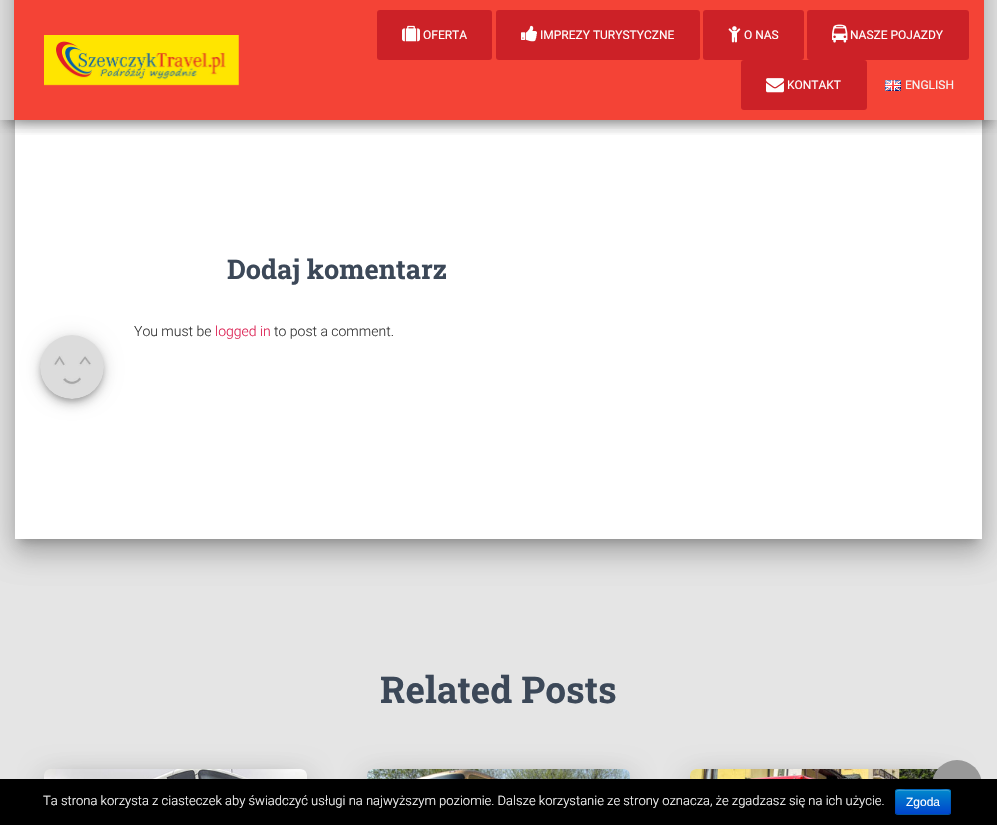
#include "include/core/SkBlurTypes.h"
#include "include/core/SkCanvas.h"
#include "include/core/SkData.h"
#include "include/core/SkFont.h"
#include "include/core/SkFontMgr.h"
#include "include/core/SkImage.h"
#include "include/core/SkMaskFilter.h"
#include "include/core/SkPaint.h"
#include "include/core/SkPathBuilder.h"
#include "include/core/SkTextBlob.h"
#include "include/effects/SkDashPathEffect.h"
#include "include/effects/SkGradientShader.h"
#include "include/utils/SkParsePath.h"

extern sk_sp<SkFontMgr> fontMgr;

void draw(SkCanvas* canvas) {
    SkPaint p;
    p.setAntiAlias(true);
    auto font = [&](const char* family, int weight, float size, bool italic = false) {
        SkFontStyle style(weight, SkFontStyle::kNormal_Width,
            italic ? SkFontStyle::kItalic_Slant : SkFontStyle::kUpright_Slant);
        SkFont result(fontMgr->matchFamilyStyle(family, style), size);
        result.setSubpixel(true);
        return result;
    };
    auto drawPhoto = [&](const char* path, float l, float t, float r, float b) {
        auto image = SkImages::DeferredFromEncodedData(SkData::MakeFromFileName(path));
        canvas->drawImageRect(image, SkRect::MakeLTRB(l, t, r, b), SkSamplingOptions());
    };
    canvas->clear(0xFFE5E5E5);
    p.setColor(0x33000000);
    p.setMaskFilter(SkMaskFilter::MakeBlur(kNormal_SkBlurStyle, 5));
    canvas->drawRoundRect(SkRect::MakeLTRB(20, -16, 977, 542), 1, 1, p);
    p.setMaskFilter(nullptr);
    p.setColor(0x1F000000);
    p.setMaskFilter(SkMaskFilter::MakeBlur(kNormal_SkBlurStyle, 15));
    canvas->drawRoundRect(SkRect::MakeLTRB(10, -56, 987, 550), 11, 11, p);
    p.setMaskFilter(nullptr);
    p.setColor(0x24000000);
    p.setMaskFilter(SkMaskFilter::MakeBlur(kNormal_SkBlurStyle, 12));
    canvas->drawRoundRect(SkRect::MakeLTRB(13, -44, 984, 557), 8, 8, p);
    p.setMaskFilter(nullptr);
    p.setColor(0xFFFFFFFF);
    canvas->drawRect(SkRect::MakeLTRB(15, 120, 982, 539), p);
    canvas->save();
    canvas->clipRect(SkRect::MakeLTRB(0, 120, 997, 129));
    p.setColor(0x33000000);
    p.setMaskFilter(SkMaskFilter::MakeBlur(kNormal_SkBlurStyle, 5));
    canvas->drawRect(SkRect::MakeLTRB(5, 13, 992, 123), p);
    p.setMaskFilter(nullptr);
    canvas->restore();
    canvas->save();
    canvas->clipRect(SkRect::MakeLTRB(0, 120, 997, 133));
    p.setColor(0x1F000000);
    p.setMaskFilter(SkMaskFilter::MakeBlur(kNormal_SkBlurStyle, 10));
    canvas->drawRect(SkRect::MakeLTRB(0, 3, 997, 123), p);
    p.setMaskFilter(nullptr);
    canvas->restore();
    canvas->save();
    canvas->clipRect(SkRect::MakeLTRB(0, 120, 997, 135));
    p.setColor(0x6B000000);
    p.setMaskFilter(SkMaskFilter::MakeBlur(kNormal_SkBlurStyle, 10));
    canvas->drawRect(SkRect::MakeLTRB(12, 22, 985, 118), p);
    p.setMaskFilter(nullptr);
    canvas->restore();
    p.setColor(0xFFF44336);
    canvas->drawRect(SkRect::MakeLTRB(14, 0, 984, 120), p);
    drawPhoto("media/1.png", 44, 35, 239, 86);
    p.setColor(0xFFCC2127);
    canvas->drawRoundRect(SkRect::MakeLTRB(377, 10, 492, 60), 3, 3, p);
    drawPhoto("media/2.png", 402, 25, 420, 42);
    auto font1 = font("Roboto", 400, 12);
    p.setColor(0xFFFFFFFF);
    canvas->drawString("OFERTA", 423, 39, font1, p);
    p.setColor(0xFFCC2127);
    canvas->drawRoundRect(SkRect::MakeLTRB(496, 10, 700, 60), 3, 3, p);
    drawPhoto("media/3.png", 521, 25, 537, 42);
    p.setColor(0xFFFFFFFF);
    canvas->drawString("IMPREZY TURYSTYCZNE", 540, 39, font1, p);
    p.setColor(0xFFCC2127);
    canvas->drawRoundRect(SkRect::MakeLTRB(703, 10, 804, 60), 3, 3, p);
    drawPhoto("media/4.png", 728, 26, 741, 43);
    p.setColor(0xFFFFFFFF);
    canvas->drawString("O NAS", 744, 39, font1, p);
    p.setColor(0xFFCC2127);
    canvas->drawRoundRect(SkRect::MakeLTRB(807, 10, 969, 60), 3, 3, p);
    drawPhoto("media/5.png", 832, 24, 848, 43);
    p.setColor(0xFFFFFFFF);
    canvas->drawString("NASZE POJAZDY", 850, 39, font1, p);
    p.setColor(0xFFCC2127);
    canvas->drawRoundRect(SkRect::MakeLTRB(741, 60, 867, 110), 3, 3, p);
    drawPhoto("media/6.png", 766, 78, 784, 93);
    p.setColor(0xFFFFFFFF);
    canvas->drawString("KONTAKT", 787, 89, font1, p);
    drawPhoto("media/7.png", 885, 80, 901, 91);
    p.setColor(0xFFF4F4F4);
    canvas->drawString("ENGLISH", 905, 89, font1, p);
    auto font2 = font("Roboto Slab", 700, 27);
    p.setColor(0xFF3C4858);
    canvas->drawString("Dodaj komentarz", 227, 279, font2, p);
    p.setColor(0x33000000);
    p.setMaskFilter(SkMaskFilter::MakeBlur(kNormal_SkBlurStyle, 2.5f));
    canvas->drawRoundRect(SkRect::MakeLTRB(41, 339, 103, 401), 31, 31, p);
    p.setMaskFilter(nullptr);
    p.setColor(0x1F000000);
    p.setMaskFilter(SkMaskFilter::MakeBlur(kNormal_SkBlurStyle, 9));
    canvas->drawRoundRect(SkRect::MakeLTRB(40, 336, 104, 400), 32, 32, p);
    p.setMaskFilter(nullptr);
    p.setColor(0x24000000);
    p.setMaskFilter(SkMaskFilter::MakeBlur(kNormal_SkBlurStyle, 5));
    canvas->drawRoundRect(SkRect::MakeLTRB(40, 341, 104, 405), 32, 32, p);
    p.setMaskFilter(nullptr);
    drawPhoto("media/8.png", 40, 335, 104, 399);
    auto font3 = font("Roboto", 300, 14);
    p.setColor(0xFF333333);
    canvas->drawString("You must be", 134, 336, font3, p);
    p.setColor(0xFFDB1C4F);
    canvas->drawString("logged in", 215, 336, font3, p);
    p.setColor(0xFF333333);
    canvas->drawString("to post a comment.", 274, 336, font3, p);
    auto font4 = font("Roboto Slab", 700, 37);
    p.setColor(0xFF3C4858);
    canvas->drawString("Related Posts", 380, 703, font4, p);
    p.setColor(0x1F000000);
    p.setMaskFilter(SkMaskFilter::MakeBlur(kNormal_SkBlurStyle, 12.5f));
    canvas->drawRoundRect(SkRect::MakeLTRB(44, 773, 307, 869), 6, 6, p);
    p.setMaskFilter(nullptr);
    p.setColor(0x8F000000);
    p.setMaskFilter(SkMaskFilter::MakeBlur(kNormal_SkBlurStyle, 19));
    canvas->drawRect(SkRect::MakeLTRB(56, 797, 295, 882), p);
    p.setMaskFilter(nullptr);
    drawPhoto("media/9.png", 44, 769, 307, 779);
    p.setColor(0x1F000000);
    p.setMaskFilter(SkMaskFilter::MakeBlur(kNormal_SkBlurStyle, 12.5f));
    canvas->drawRoundRect(SkRect::MakeLTRB(367, 773, 630, 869), 6, 6, p);
    p.setMaskFilter(nullptr);
    p.setColor(0x8F000000);
    p.setMaskFilter(SkMaskFilter::MakeBlur(kNormal_SkBlurStyle, 19));
    canvas->drawRect(SkRect::MakeLTRB(379, 797, 618, 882), p);
    p.setMaskFilter(nullptr);
    drawPhoto("media/10.png", 367, 769, 630, 779);
    p.setColor(0x1F000000);
    p.setMaskFilter(SkMaskFilter::MakeBlur(kNormal_SkBlurStyle, 12.5f));
    canvas->drawRoundRect(SkRect::MakeLTRB(690, 773, 953, 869), 6, 6, p);
    p.setMaskFilter(nullptr);
    p.setColor(0x8F000000);
    p.setMaskFilter(SkMaskFilter::MakeBlur(kNormal_SkBlurStyle, 19));
    canvas->drawRect(SkRect::MakeLTRB(702, 797, 941, 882), p);
    p.setMaskFilter(nullptr);
    drawPhoto("media/11.png", 690, 769, 938, 779);
    p.setColor(0xFF999999);
    canvas->drawCircle(957, 785, 25, p);
    p.setColor(0xFF000000);
    canvas->drawRect(SkRect::MakeLTRB(0, 779, 997, 825), p);
    auto font5 = font("Roboto", 300, 13);
    p.setColor(0xFFFFFFFF);
    canvas->drawString("Ta strona korzysta z ciasteczek aby świadczyć usługi na najwyższym poziomie. Dalsze korzystanie ze strony oznacza, że zgadzasz się na ich użycie.", 43, 805, font5, p);
    p.setColor(0xFF006DCC);
    canvas->drawRoundRect(SkRect::MakeLTRB(895, 789, 951, 815), 3, 3, p);
    canvas->save();
    canvas->clipPath(SkPathBuilder().moveTo(898, 789).lineTo(948, 789).cubicTo(949.5f, 789, 951, 790.5f, 951, 792).lineTo(951, 812).cubicTo(951, 813.5f, 949.5f, 815, 948, 815).lineTo(898, 815).cubicTo(896.5f, 815, 895, 813.5f, 895, 812).lineTo(895, 792).cubicTo(895, 790.5f, 896.5f, 789, 898, 789).close().detach(), true);
    {
        const SkColor colors[] = {0xFF0088CC, 0xFF0044CC};
        const float stops[] = {0, 1};
        const SkPoint ends[] = {{923, 790}, {923, 814}};
        p.setShader(SkGradientShader::MakeLinear(ends, colors, stops, 2, SkTileMode::kClamp));
        p.setAlpha(255);
    }
    canvas->drawRect(SkRect::MakeLTRB(895, 790, 951, 814), p);
    canvas->restore();
    p.setShader(nullptr);
    p.setColor(0xFF339FD6);
    canvas->drawPath(SkPathBuilder().moveTo(898, 791).lineTo(948, 791).cubicTo(949, 791, 950, 792, 950, 793).cubicTo(950, 788, 944, 790, 940, 790).lineTo(906, 790).cubicTo(902, 790, 896, 788, 896, 793).cubicTo(896, 792, 897, 791, 898, 791).close().detach(), p);
    p.setStyle(SkPaint::kStroke_Style);
    p.setStrokeWidth(1);
    p.setColor(0x40000000);
    canvas->drawPath(SkPathBuilder().moveTo(950, 814).lineTo(948, 814.5f).lineTo(898, 814.5f).lineTo(896, 814).detach(), p);
    p.setColor(0x1A000000);
    canvas->drawPath(SkPathBuilder().moveTo(896, 814).cubicTo(894.5f, 812, 895.5f, 804.5f, 895.5f, 802).cubicTo(895.5f, 788, 893, 789.5f, 906.5f, 789.5f).lineTo(939.5f, 789.5f).cubicTo(953, 789.5f, 950.5f, 788, 950.5f, 802).cubicTo(950.5f, 804.5f, 951.5f, 812, 950, 814).detach(), p);
    auto font6 = font("Liberation Sans", 400, 12);
    p.setStyle(SkPaint::kFill_Style);
    p.setColor(0xFFFFFFFF);
    canvas->drawString("Zgoda", 906, 806, font6, p);
}
